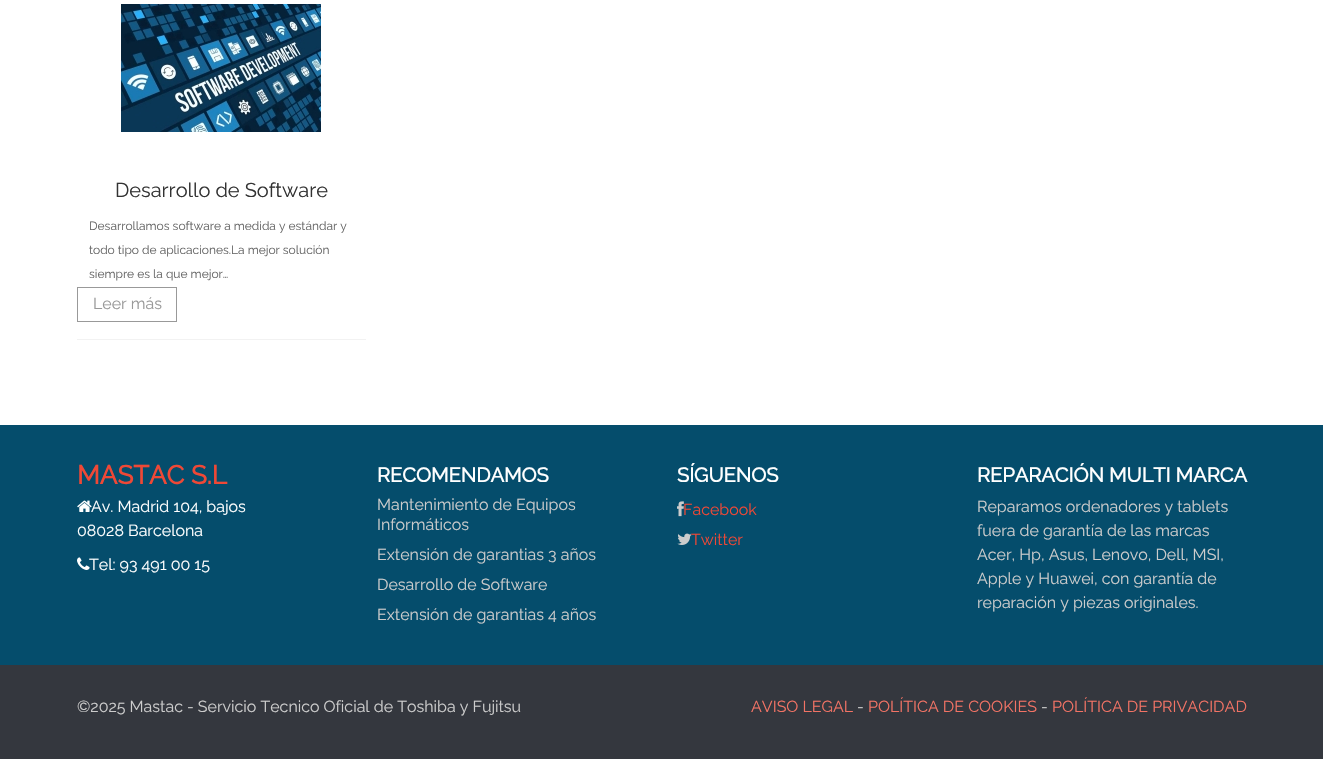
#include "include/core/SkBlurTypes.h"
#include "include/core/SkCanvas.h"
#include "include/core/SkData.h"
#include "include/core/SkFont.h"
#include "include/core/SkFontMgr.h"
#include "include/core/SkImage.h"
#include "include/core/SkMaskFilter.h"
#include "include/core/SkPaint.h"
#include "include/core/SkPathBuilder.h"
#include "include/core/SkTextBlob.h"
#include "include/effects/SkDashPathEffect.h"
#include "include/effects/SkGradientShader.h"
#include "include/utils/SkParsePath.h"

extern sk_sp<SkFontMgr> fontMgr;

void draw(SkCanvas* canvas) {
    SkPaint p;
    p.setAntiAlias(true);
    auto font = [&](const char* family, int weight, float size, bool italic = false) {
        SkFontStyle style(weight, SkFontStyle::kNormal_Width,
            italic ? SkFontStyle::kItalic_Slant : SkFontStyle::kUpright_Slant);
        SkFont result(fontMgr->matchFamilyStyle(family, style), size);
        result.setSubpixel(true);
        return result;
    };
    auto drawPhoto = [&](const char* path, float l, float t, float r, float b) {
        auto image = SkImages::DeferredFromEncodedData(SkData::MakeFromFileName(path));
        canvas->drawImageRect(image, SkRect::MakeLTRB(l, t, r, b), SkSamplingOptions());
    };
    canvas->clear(0xFFFFFFFF);
    p.setColor(0xFFF2F2F2);
    canvas->drawRect(SkRect::MakeLTRB(77, 339, 366, 340), p);
    drawPhoto("media/1.png", 121, 4, 321, 132);
    auto font1 = font("Raleway", 100, 20);
    p.setColor(0xFF333333);
    canvas->drawString("Desarrollo de Software", 115, 197, font1, p);
    auto font2 = font("Raleway", 100, 12);
    p.setColor(0xFF666666);
    {
        const struct { const char* s; float x, y; } items[] = {
            {"Desarrollamos software a medida y estándar y", 89, 230},
            {"todo tipo de aplicaciones.La mejor solución", 89, 254},
            {"siempre es la que mejor…", 89, 278},
        };
        for (auto [s, x, y] : items) {
            canvas->drawString(s, x, y, font2, p);
        }
    }
    p.setStyle(SkPaint::kStroke_Style);
    p.setStrokeWidth(1);
    p.setColor(0xFF999999);
    canvas->drawRect(SkRect::MakeLTRB(77.5f, 287.5f, 176.5f, 321.5f), p);
    auto font3 = font("Raleway", 100, 16);
    p.setStyle(SkPaint::kFill_Style);
    canvas->drawString("Leer más", 93, 309, font3, p);
    p.setColor(0xFF054D6C);
    canvas->drawRect(SkRect::MakeLTRB(0, 425, 1323, 665), p);
    auto font4 = font("Raleway", 700, 26);
    p.setColor(0xFFEF4836);
    canvas->drawString("MASTAC S.L", 77, 484, font4, p);
    drawPhoto("media/2.png", 77, 500, 92, 512);
    p.setColor(0xFFFFFFFF);
    canvas->drawString("Av. Madrid 104, bajos", 91, 512, font3, p);
    canvas->drawString("08028 Barcelona", 77, 536, font3, p);
    drawPhoto("media/3.png", 77, 557, 90, 570);
    canvas->drawString("Tel: 93 491 00 15", 89, 570, font3, p);
    auto font5 = font("Raleway", 700, 20);
    canvas->drawString("RECOMENDAMOS", 377, 482, font5, p);
    p.setColor(0xFFCCCCCC);
    {
        const struct { const char* s; float x, y; } items[] = {
            {"Mantenimiento de Equipos", 377, 510},
            {"Informáticos", 377, 530},
            {"Extensión de garantias 3 años", 377, 560},
            {"Desarrollo de Software", 377, 590},
            {"Extensión de garantias 4 años", 377, 620},
        };
        for (auto [s, x, y] : items) {
            canvas->drawString(s, x, y, font3, p);
        }
    }
    p.setColor(0xFFFFFFFF);
    canvas->drawString("SÍGUENOS", 677, 482, font5, p);
    drawPhoto("media/4.png", 677, 501, 684, 517);
    p.setColor(0xFFEF4836);
    canvas->drawString("Facebook", 683, 515, font3, p);
    drawPhoto("media/5.png", 677, 533, 692, 545);
    canvas->drawString("Twitter", 691, 545, font3, p);
    p.setColor(0xFFFFFFFF);
    canvas->drawString("REPARACIÓN MULTI MARCA", 977, 482, font5, p);
    p.setColor(0xFFCCCCCC);
    {
        const struct { const char* s; float x, y; } items[] = {
            {"Reparamos ordenadores y tablets", 977, 512},
            {"fuera de garantía de las marcas", 977, 536},
            {"Acer, Hp, Asus, Lenovo, Dell, MSI,", 977, 560},
            {"Apple y Huawei, con garantía de", 977, 584},
            {"reparación y piezas originales.", 977, 608},
        };
        for (auto [s, x, y] : items) {
            canvas->drawString(s, x, y, font3, p);
        }
    }
    p.setColor(0xFF34373E);
    canvas->drawRect(SkRect::MakeLTRB(0, 665, 1323, 759), p);
    p.setColor(0xFFCCCCCC);
    canvas->drawString("©2025 Mastac - Servicio Tecnico Oficial de Toshiba y Fujitsu", 77, 712, font3, p);
    p.setColor(0xFFF37365);
    canvas->drawString("AVISO LEGAL", 751, 712, font3, p);
    p.setColor(0xFFCCCCCC);
    canvas->drawString("-", 857, 712, font3, p);
    p.setColor(0xFFF37365);
    canvas->drawString("POLÍTICA DE COOKIES", 868, 712, font3, p);
    p.setColor(0xFFCCCCCC);
    canvas->drawString("-", 1041, 712, font3, p);
    p.setColor(0xFFF37365);
    canvas->drawString("POLÍTICA DE PRIVACIDAD", 1052, 712, font3, p);
}
